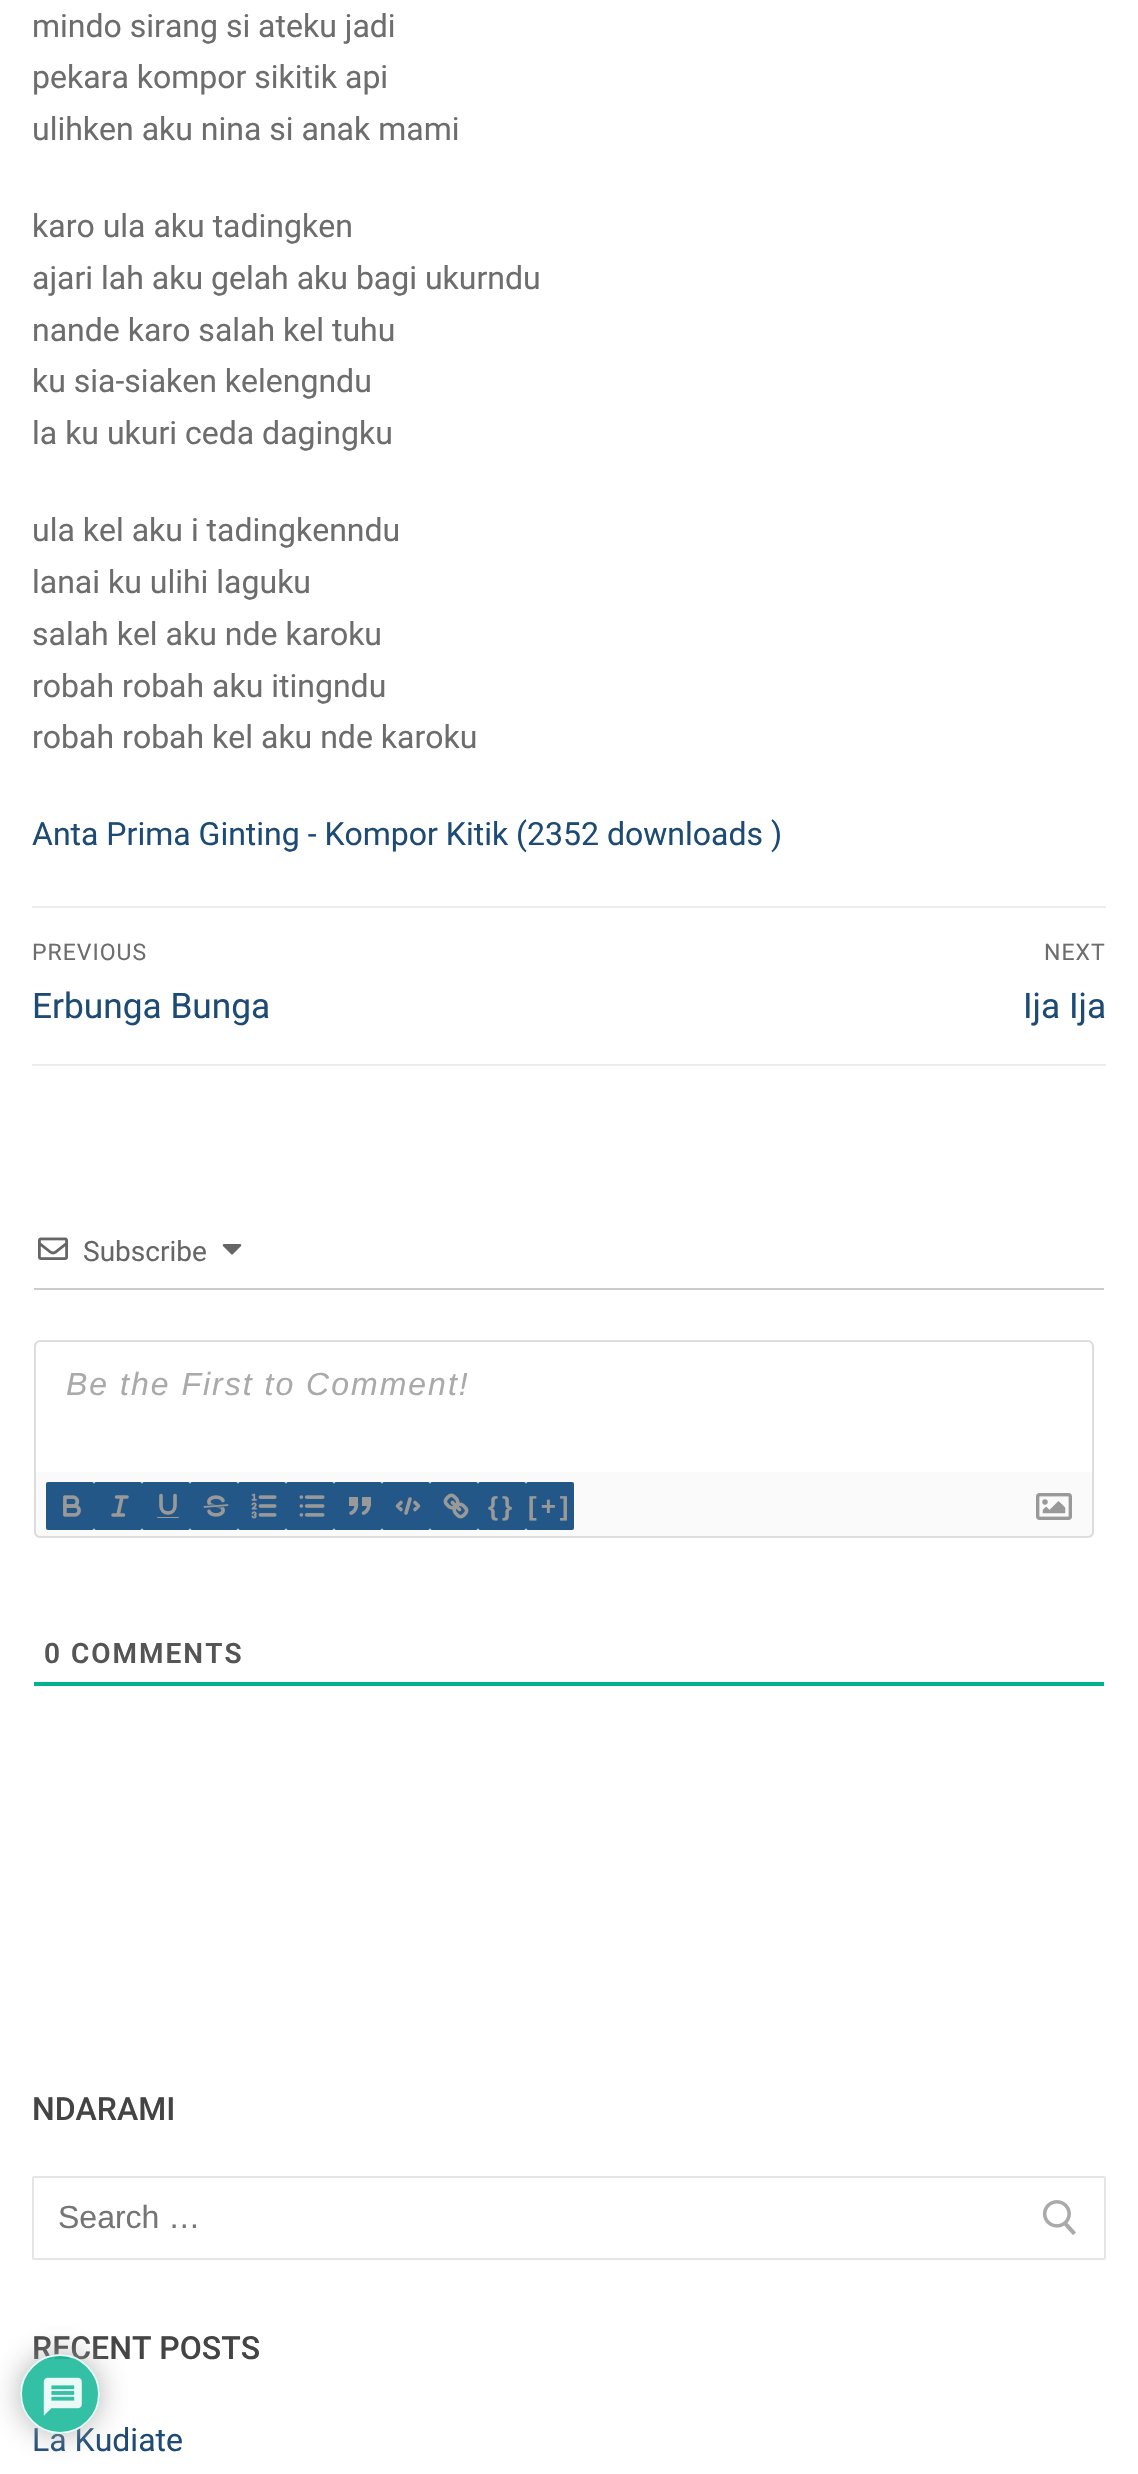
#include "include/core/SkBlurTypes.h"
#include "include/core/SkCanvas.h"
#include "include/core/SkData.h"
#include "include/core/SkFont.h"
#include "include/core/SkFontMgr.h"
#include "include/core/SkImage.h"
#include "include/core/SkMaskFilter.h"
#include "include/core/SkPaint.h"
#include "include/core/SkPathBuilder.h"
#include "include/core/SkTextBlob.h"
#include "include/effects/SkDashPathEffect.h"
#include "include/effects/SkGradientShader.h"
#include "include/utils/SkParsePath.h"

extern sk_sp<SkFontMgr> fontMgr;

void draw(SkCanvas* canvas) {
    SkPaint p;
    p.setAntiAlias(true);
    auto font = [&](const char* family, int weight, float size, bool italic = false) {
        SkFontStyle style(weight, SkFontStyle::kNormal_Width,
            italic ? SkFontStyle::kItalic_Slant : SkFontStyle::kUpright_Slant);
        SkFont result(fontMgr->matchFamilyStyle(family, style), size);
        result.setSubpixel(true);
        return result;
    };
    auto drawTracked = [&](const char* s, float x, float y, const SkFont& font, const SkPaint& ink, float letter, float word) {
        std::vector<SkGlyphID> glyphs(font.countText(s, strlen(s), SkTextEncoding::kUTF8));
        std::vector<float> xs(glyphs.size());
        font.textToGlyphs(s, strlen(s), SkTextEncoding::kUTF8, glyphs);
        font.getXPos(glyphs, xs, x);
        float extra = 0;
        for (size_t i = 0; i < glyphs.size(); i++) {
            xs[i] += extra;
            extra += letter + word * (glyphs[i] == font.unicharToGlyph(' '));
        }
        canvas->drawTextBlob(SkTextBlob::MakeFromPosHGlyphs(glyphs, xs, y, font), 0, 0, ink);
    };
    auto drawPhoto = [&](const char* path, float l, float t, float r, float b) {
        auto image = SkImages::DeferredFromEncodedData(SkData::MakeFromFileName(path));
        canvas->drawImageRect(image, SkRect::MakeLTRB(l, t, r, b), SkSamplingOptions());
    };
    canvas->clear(0xFFFFFFFF);
    auto font1 = font("Roboto", 400, 32);
    p.setColor(0xFF6D6D6D);
    {
        const struct { const char* s; float x, y; } items[] = {
            {"mindo sirang si ateku jadi", 32, 37},
            {"pekara kompor sikitik api", 32, 88},
            {"ulihken aku nina si anak mami", 32, 140},
            {"karo ula aku tadingken", 32, 237},
            {"ajari lah aku gelah aku bagi ukurndu", 32, 289},
            {"nande karo salah kel tuhu", 32, 341},
            {"ku sia-siaken kelengndu", 32, 392},
            {"la ku ukuri ceda dagingku", 32, 444},
            {"ula kel aku i tadingkenndu", 32, 541},
            {"lanai ku ulihi laguku", 32, 593},
            {"salah kel aku nde karoku", 32, 645},
            {"robah robah aku itingndu", 32, 697},
            {"robah robah kel aku nde karoku", 32, 748},
        };
        for (auto [s, x, y] : items) {
            canvas->drawString(s, x, y, font1, p);
        }
    }
    p.setColor(0xFF1E4B75);
    canvas->drawString("Anta Prima Ginting - Kompor Kitik (2352 downloads )", 32, 845, font1, p);
    p.setColor(0xFFEAECEE);
    canvas->drawRect(SkRect::MakeLTRB(32, 906, 1106, 908), p);
    canvas->drawRect(SkRect::MakeLTRB(32, 1064, 1106, 1066), p);
    auto font2 = font("Roboto", 400, 23);
    p.setColor(0xFF6D6D6D);
    drawTracked("PREVIOUS", 32, 960, font2, p, 1, 0);
    auto font3 = font("Roboto", 400, 35.25f);
    p.setColor(0xFF1E4B75);
    canvas->drawString("Erbunga Bunga", 32, 1018, font3, p);
    p.setColor(0xFF6D6D6D);
    drawTracked("NEXT", 1044, 960, font2, p, 1, 0);
    p.setColor(0xFF1E4B75);
    canvas->drawString("Ija Ija", 1023, 1018, font3, p);
    p.setColor(0xFFCCCCCC);
    canvas->drawRect(SkRect::MakeLTRB(34, 1288, 1104, 1290), p);
    drawPhoto("media/1.png", 38, 1237, 68, 1260);
    auto font4 = font("Roboto", 400, 28);
    p.setColor(0xFF666666);
    canvas->drawString("Subscribe", 83, 1261, font4, p);
    drawPhoto("media/2.png", 222, 1244, 242, 1255);
    p.setColor(0xFFDDDDDD);
    canvas->drawPath(SkPathBuilder(SkPathFillType::kEvenOdd).moveTo(40, 1340).lineTo(1088, 1340).cubicTo(1091, 1340, 1094, 1343, 1094, 1346).lineTo(1094, 1472).lineTo(34, 1472).lineTo(34, 1346).cubicTo(34, 1343, 37, 1340, 40, 1340).close().moveTo(40, 1342).lineTo(1088, 1342).cubicTo(1090, 1342, 1092, 1344, 1092, 1346).lineTo(1092, 1472).lineTo(36, 1472).lineTo(36, 1346).cubicTo(36, 1344, 38, 1342, 40, 1342).close().detach(), p);
    auto font5 = font("Liberation Sans", 400, 32, true);
    p.setColor(0xFFAAAAAA);
    drawTracked("Be the First to Comment!", 66, 1395, font5, p, 2, 0);
    p.setColor(0xFFFAFAFA);
    canvas->drawPath(SkPathBuilder().moveTo(34, 1472).lineTo(1094, 1472).lineTo(1094, 1532).cubicTo(1094, 1535.5f, 1091.5f, 1538, 1088, 1538).lineTo(40, 1538).cubicTo(36.5f, 1538, 34, 1535.5f, 34, 1532).close().detach(), p);
    p.setColor(0xFFDDDDDD);
    canvas->drawPath(SkPathBuilder(SkPathFillType::kEvenOdd).moveTo(34, 1472).lineTo(1094, 1472).lineTo(1094, 1532).cubicTo(1094, 1535, 1091, 1538, 1088, 1538).lineTo(40, 1538).cubicTo(37, 1538, 34, 1535, 34, 1532).close().moveTo(36, 1472).lineTo(1092, 1472).lineTo(1092, 1532).cubicTo(1092, 1534, 1090, 1536, 1088, 1536).lineTo(40, 1536).cubicTo(38, 1536, 36, 1534, 36, 1532).close().detach(), p);
    p.setColor(0xFF235787);
    canvas->drawRoundRect(SkRect::MakeLTRB(46, 1482, 94, 1530), 2, 2, p);
    drawPhoto("media/3.png", 63, 1495, 81, 1517);
    canvas->drawRoundRect(SkRect::MakeLTRB(94, 1482, 142, 1530), 2, 2, p);
    p.setStyle(SkPaint::kStroke_Style);
    p.setStrokeWidth(3.6f);
    p.setStrokeCap(SkPaint::kRound_Cap);
    p.setStrokeJoin(SkPaint::kRound_Join);
    p.setColor(0xFF999999);
    canvas->drawPath(SkPathBuilder().moveTo(116.5f, 1497).lineTo(127, 1497).moveTo(113, 1515).lineTo(123.5f, 1515).moveTo(118, 1515).lineTo(122, 1497).detach(), p);
    p.setStyle(SkPaint::kFill_Style);
    p.setColor(0xFF235787);
    canvas->drawRoundRect(SkRect::MakeLTRB(142, 1482, 190, 1530), 2, 2, p);
    p.setStyle(SkPaint::kStroke_Style);
    p.setColor(0xFF999999);
    canvas->drawPath(SkPathBuilder().moveTo(161, 1495.5f).lineTo(161, 1506).cubicTo(161, 1510, 164, 1513, 168, 1513).cubicTo(172, 1513, 175, 1510, 175, 1506).lineTo(175, 1495.5f).detach(), p);
    p.setStyle(SkPaint::kFill_Style);
    canvas->drawRoundRect(SkRect::MakeLTRB(157, 1517, 179, 1518), 0.5f, 0.5f, p);
    p.setColor(0xFF235787);
    canvas->drawRoundRect(SkRect::MakeLTRB(190, 1482, 238, 1530), 2, 2, p);
    drawPhoto("media/4.png", 203, 1495, 229, 1517);
    canvas->drawRoundRect(SkRect::MakeLTRB(238, 1482, 286, 1530), 2, 2, p);
    drawPhoto("media/5.png", 251, 1493, 277, 1519);
    canvas->drawRoundRect(SkRect::MakeLTRB(286, 1482, 334, 1530), 2, 2, p);
    drawPhoto("media/6.png", 299, 1495, 325, 1517);
    canvas->drawRoundRect(SkRect::MakeLTRB(334, 1482, 382, 1530), 2, 2, p);
    drawPhoto("media/7.png", 349, 1497, 371, 1515);
    canvas->drawRoundRect(SkRect::MakeLTRB(382, 1482, 430, 1530), 2, 2, p);
    p.setStyle(SkPaint::kStroke_Style);
    p.setColor(0xFF999999);
    canvas->drawPath(SkPathBuilder().moveTo(401, 1502.5f).lineTo(397.5f, 1506).lineTo(401, 1509.5f).moveTo(415, 1502.5f).lineTo(418.5f, 1506).lineTo(415, 1509.5f).moveTo(410, 1499).lineTo(406, 1513).detach(), p);
    p.setStyle(SkPaint::kFill_Style);
    p.setColor(0xFF235787);
    canvas->drawRoundRect(SkRect::MakeLTRB(430, 1482, 478, 1530), 2, 2, p);
    drawPhoto("media/8.png", 443, 1493, 469, 1519);
    canvas->drawRoundRect(SkRect::MakeLTRB(478, 1482, 526, 1530), 2, 2, p);
    auto font6 = font("Liberation Sans", 700, 26);
    p.setColor(0xFF999999);
    drawTracked("{}", 488, 1515, font6, p, 4, 0);
    p.setColor(0xFF235787);
    canvas->drawRoundRect(SkRect::MakeLTRB(526, 1482, 574, 1530), 2, 2, p);
    p.setColor(0xFF999999);
    drawTracked("[+]", 528, 1515, font6, p, 4, 0);
    drawPhoto("media/9.png", 1036, 1493, 1072, 1520);
    p.setColor(0xFF00B38F);
    canvas->drawRect(SkRect::MakeLTRB(34, 1682, 1104, 1686), p);
    auto font7 = font("Roboto", 600, 28);
    p.setColor(0xFF555555);
    drawTracked("0 COMMENTS", 44, 1663, font7, p, 2, 0);
    auto font8 = font("Roboto", 500, 32);
    p.setColor(0xFF444444);
    canvas->drawString("NDARAMI", 32, 2120, font8, p);
    p.setStyle(SkPaint::kStroke_Style);
    p.setStrokeWidth(2);
    p.setStrokeCap(SkPaint::kButt_Cap);
    p.setStrokeJoin(SkPaint::kMiter_Join);
    p.setColor(0xFFE5E5E5);
    canvas->drawRoundRect(SkRect::MakeLTRB(33, 2177, 1105, 2259), 1, 1, p);
    auto font9 = font("Liberation Sans", 400, 32);
    p.setStyle(SkPaint::kFill_Style);
    p.setColor(0xFF757575);
    canvas->drawString("Search …", 58, 2228, font9, p);
    drawPhoto("media/10.png", 1042, 2200, 1076, 2235);
    p.setColor(0xFF444444);
    canvas->drawString("RECENT POSTS", 32, 2359, font8, p);
    p.setColor(0xFF1E4B75);
    canvas->drawString("La Kudiate", 32, 2451, font1, p);
    canvas->save();
    canvas->clipPath(SkPathBuilder(SkPathFillType::kEvenOdd).moveTo(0, 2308).lineTo(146, 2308).lineTo(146, 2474).lineTo(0, 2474).close().moveTo(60, 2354).cubicTo(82, 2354, 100, 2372, 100, 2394).cubicTo(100, 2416, 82, 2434, 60, 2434).cubicTo(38, 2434, 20, 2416, 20, 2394).cubicTo(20, 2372, 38, 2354, 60, 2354).close().detach(), true);
    p.setColor(0xE6AAAAAA);
    p.setMaskFilter(SkMaskFilter::MakeBlur(kNormal_SkBlurStyle, 15));
    canvas->drawRoundRect(SkRect::MakeLTRB(20, 2354, 100, 2434), 40, 40, p);
    p.setMaskFilter(nullptr);
    canvas->restore();
    p.setColor(0xE61DB99A);
    canvas->drawCircle(60, 2394, 40, p);
    p.setStyle(SkPaint::kStroke_Style);
    p.setColor(0xE6FFFFFF);
    canvas->drawCircle(60, 2394, 39, p);
    drawPhoto("media/11.png", 43, 2377, 82, 2416);
}
